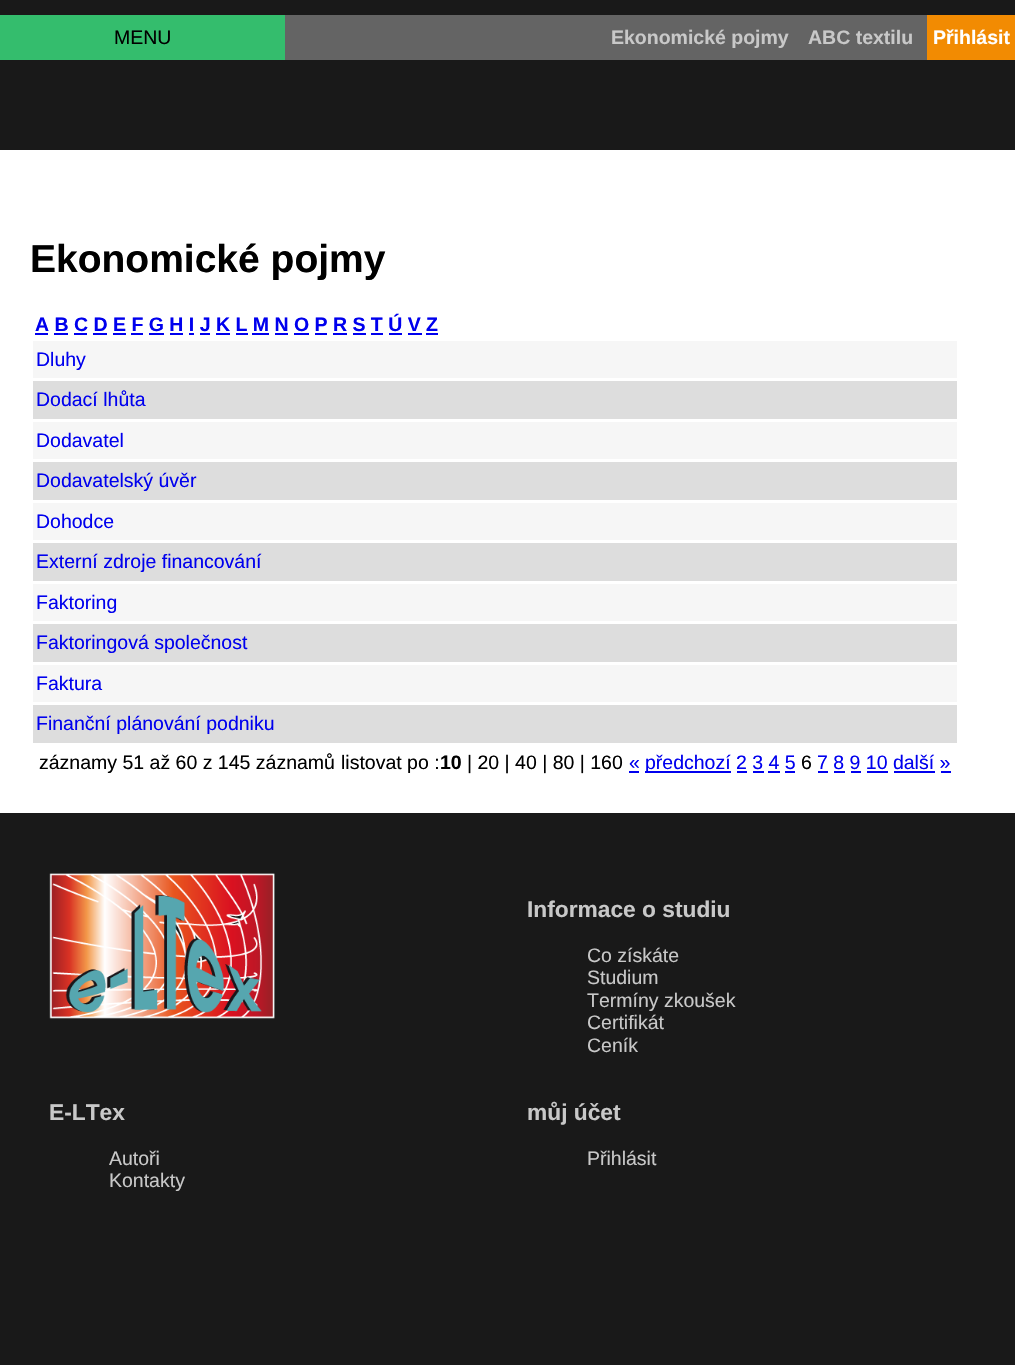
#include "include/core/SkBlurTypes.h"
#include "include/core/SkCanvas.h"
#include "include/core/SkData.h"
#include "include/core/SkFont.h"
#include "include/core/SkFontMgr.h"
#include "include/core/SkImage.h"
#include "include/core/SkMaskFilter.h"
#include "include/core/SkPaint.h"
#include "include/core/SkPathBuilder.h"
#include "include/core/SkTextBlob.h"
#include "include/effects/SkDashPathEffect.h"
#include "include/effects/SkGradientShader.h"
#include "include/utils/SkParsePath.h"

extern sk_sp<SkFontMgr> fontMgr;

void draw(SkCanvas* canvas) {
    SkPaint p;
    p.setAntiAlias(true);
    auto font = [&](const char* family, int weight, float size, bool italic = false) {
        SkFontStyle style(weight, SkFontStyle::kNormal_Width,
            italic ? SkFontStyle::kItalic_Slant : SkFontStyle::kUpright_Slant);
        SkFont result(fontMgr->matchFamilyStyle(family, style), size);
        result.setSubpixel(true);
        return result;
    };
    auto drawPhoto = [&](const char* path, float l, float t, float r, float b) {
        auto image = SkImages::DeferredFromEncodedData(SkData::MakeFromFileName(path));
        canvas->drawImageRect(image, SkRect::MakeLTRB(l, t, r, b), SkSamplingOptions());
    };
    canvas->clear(0xFF191919);
    p.setColor(0xFF646464);
    canvas->drawRect(SkRect::MakeLTRB(285, 15, 927, 60), p);
    p.setColor(0xFF34BD6D);
    canvas->drawRect(SkRect::MakeLTRB(0, 15, 285, 60), p);
    auto font1 = font("Liberation Sans", 400, 19.5f);
    p.setColor(0xFF000000);
    canvas->drawString("MENU", 114, 44, font1, p);
    auto font2 = font("Liberation Sans", 700, 19.5f);
    p.setColor(0xFFC8C8C8);
    canvas->drawString("Ekonomické pojmy", 611, 44, font2, p);
    canvas->drawString("ABC textilu", 808, 44, font2, p);
    p.setColor(0xFFF28B02);
    canvas->drawRect(SkRect::MakeLTRB(927, 15, 1015, 60), p);
    p.setColor(0xFFFFFFFF);
    canvas->drawString("Přihlásit", 933, 44, font2, p);
    canvas->drawRect(SkRect::MakeLTRB(0, 150, 1015, 813), p);
    auto font3 = font("Liberation Sans", 700, 39);
    p.setColor(0xFF000000);
    canvas->drawString("Ekonomické pojmy", 30, 272, font3, p);
    p.setColor(0xFF0000EE);
    canvas->drawString("A B C D E F G H I J K L M N O P R S T Ú V Z", 35, 331, font2, p);
    {
        const struct { float l, t, r, b; SkColor color; } items[] = {
            {35, 333, 48, 335, 0xFF0000EE},
            {54, 333, 68, 335, 0xFF0000EE},
            {74, 333, 87, 335, 0xFF0000EE},
            {93, 333, 107, 335, 0xFF0000EE},
            {113, 333, 126, 335, 0xFF0000EE},
            {131, 333, 143, 335, 0xFF0000EE},
            {149, 333, 164, 335, 0xFF0000EE},
            {170, 333, 183, 335, 0xFF0000EE},
            {189, 333, 194, 335, 0xFF0000EE},
            {200, 333, 210, 335, 0xFF0000EE},
            {216, 333, 230, 335, 0xFF0000EE},
            {236, 333, 248, 335, 0xFF0000EE},
            {252, 333, 269, 335, 0xFF0000EE},
            {275, 333, 288, 335, 0xFF0000EE},
            {294, 333, 309, 335, 0xFF0000EE},
            {315, 333, 327, 335, 0xFF0000EE},
            {333, 333, 347, 335, 0xFF0000EE},
            {353, 333, 366, 335, 0xFF0000EE},
            {371, 333, 383, 335, 0xFF0000EE},
            {389, 333, 402, 335, 0xFF0000EE},
            {408, 333, 422, 335, 0xFF0000EE},
            {426, 333, 438, 335, 0xFF0000EE},
            {33, 341, 957, 378, 0xFFF6F6F6},
        };
        for (auto [l, t, r, b, color] : items) {
            p.setColor(color);
            canvas->drawRect(SkRect::MakeLTRB(l, t, r, b), p);
        }
    }
    p.setColor(0xFF0000EE);
    canvas->drawString("Dluhy", 36, 366, font1, p);
    p.setColor(0xFFDDDDDD);
    canvas->drawRect(SkRect::MakeLTRB(33, 381, 957, 419), p);
    p.setColor(0xFF0000EE);
    canvas->drawString("Dodací lhůta", 36, 406, font1, p);
    p.setColor(0xFFF6F6F6);
    canvas->drawRect(SkRect::MakeLTRB(33, 422, 957, 459), p);
    p.setColor(0xFF0000EE);
    canvas->drawString("Dodavatel", 36, 447, font1, p);
    p.setColor(0xFFDDDDDD);
    canvas->drawRect(SkRect::MakeLTRB(33, 462, 957, 500), p);
    p.setColor(0xFF0000EE);
    canvas->drawString("Dodavatelský úvěr", 36, 487, font1, p);
    p.setColor(0xFFF6F6F6);
    canvas->drawRect(SkRect::MakeLTRB(33, 503, 957, 540), p);
    p.setColor(0xFF0000EE);
    canvas->drawString("Dohodce", 36, 528, font1, p);
    p.setColor(0xFFDDDDDD);
    canvas->drawRect(SkRect::MakeLTRB(33, 543, 957, 581), p);
    p.setColor(0xFF0000EE);
    canvas->drawString("Externí zdroje financování", 36, 568, font1, p);
    p.setColor(0xFFF6F6F6);
    canvas->drawRect(SkRect::MakeLTRB(33, 584, 957, 621), p);
    p.setColor(0xFF0000EE);
    canvas->drawString("Faktoring", 36, 609, font1, p);
    p.setColor(0xFFDDDDDD);
    canvas->drawRect(SkRect::MakeLTRB(33, 624, 957, 662), p);
    p.setColor(0xFF0000EE);
    canvas->drawString("Faktoringová společnost", 36, 649, font1, p);
    p.setColor(0xFFF6F6F6);
    canvas->drawRect(SkRect::MakeLTRB(33, 665, 957, 702), p);
    p.setColor(0xFF0000EE);
    canvas->drawString("Faktura", 36, 690, font1, p);
    p.setColor(0xFFDDDDDD);
    canvas->drawRect(SkRect::MakeLTRB(33, 705, 957, 743), p);
    p.setColor(0xFF0000EE);
    canvas->drawString("Finanční plánování podniku", 36, 730, font1, p);
    p.setColor(0xFF000000);
    canvas->drawString("záznamy 51 až 60 z 145 záznamů", 39, 769, font1, p);
    canvas->drawString("listovat po :", 341, 769, font1, p);
    canvas->drawString("10", 440, 769, font2, p);
    canvas->drawString("| 20 | 40 | 80 | 160", 467, 769, font1, p);
    p.setColor(0xFF0000EE);
    canvas->drawString("«", 629, 769, font1, p);
    canvas->drawRect(SkRect::MakeLTRB(629, 771, 639, 773), p);
    canvas->drawRect(SkRect::MakeLTRB(645, 771, 731, 773), p);
    canvas->drawString("předchozí 2 3 4 5", 645, 769, font1, p);
    p.setColor(0xFF000000);
    canvas->drawString("6", 801, 769, font1, p);
    p.setColor(0xFF0000EE);
    canvas->drawString("7 8 9 10 další »", 817, 769, font1, p);
    {
        const struct { float l, t, r, b; SkColor color; } items[] = {
            {818, 771, 828, 773, 0xFF0000EE},
            {737, 771, 747, 773, 0xFF0000EE},
            {753, 771, 764, 773, 0xFF0000EE},
            {768, 771, 780, 773, 0xFF0000EE},
            {785, 771, 795, 773, 0xFF0000EE},
            {834, 771, 845, 773, 0xFF0000EE},
            {851, 771, 861, 773, 0xFF0000EE},
            {867, 771, 888, 773, 0xFF0000EE},
            {894, 771, 935, 773, 0xFF0000EE},
            {941, 771, 951, 773, 0xFF0000EE},
        };
        for (auto [l, t, r, b, color] : items) {
            p.setColor(color);
            canvas->drawRect(SkRect::MakeLTRB(l, t, r, b), p);
        }
    }
    drawPhoto("media/1.png", 49, 873, 275, 1019);
    auto font4 = font("Liberation Sans", 700, 22.75f);
    p.setColor(0xFFC8C8C8);
    canvas->drawString("Informace o studiu", 527, 917, font4, p);
    {
        const struct { const char* s; float x, y; } items[] = {
            {"Co získáte", 587, 962},
            {"Studium", 587, 984},
            {"Termíny zkoušek", 587, 1007},
            {"Certifikát", 587, 1029},
            {"Ceník", 587, 1052},
        };
        for (auto [s, x, y] : items) {
            canvas->drawString(s, x, y, font1, p);
        }
    }
    canvas->drawString("E-LTex", 49, 1120, font4, p);
    canvas->drawString("Autoři", 109, 1165, font1, p);
    canvas->drawString("Kontakty", 109, 1187, font1, p);
    canvas->drawString("můj účet", 527, 1120, font4, p);
    canvas->drawString("Přihlásit", 587, 1165, font1, p);
}
